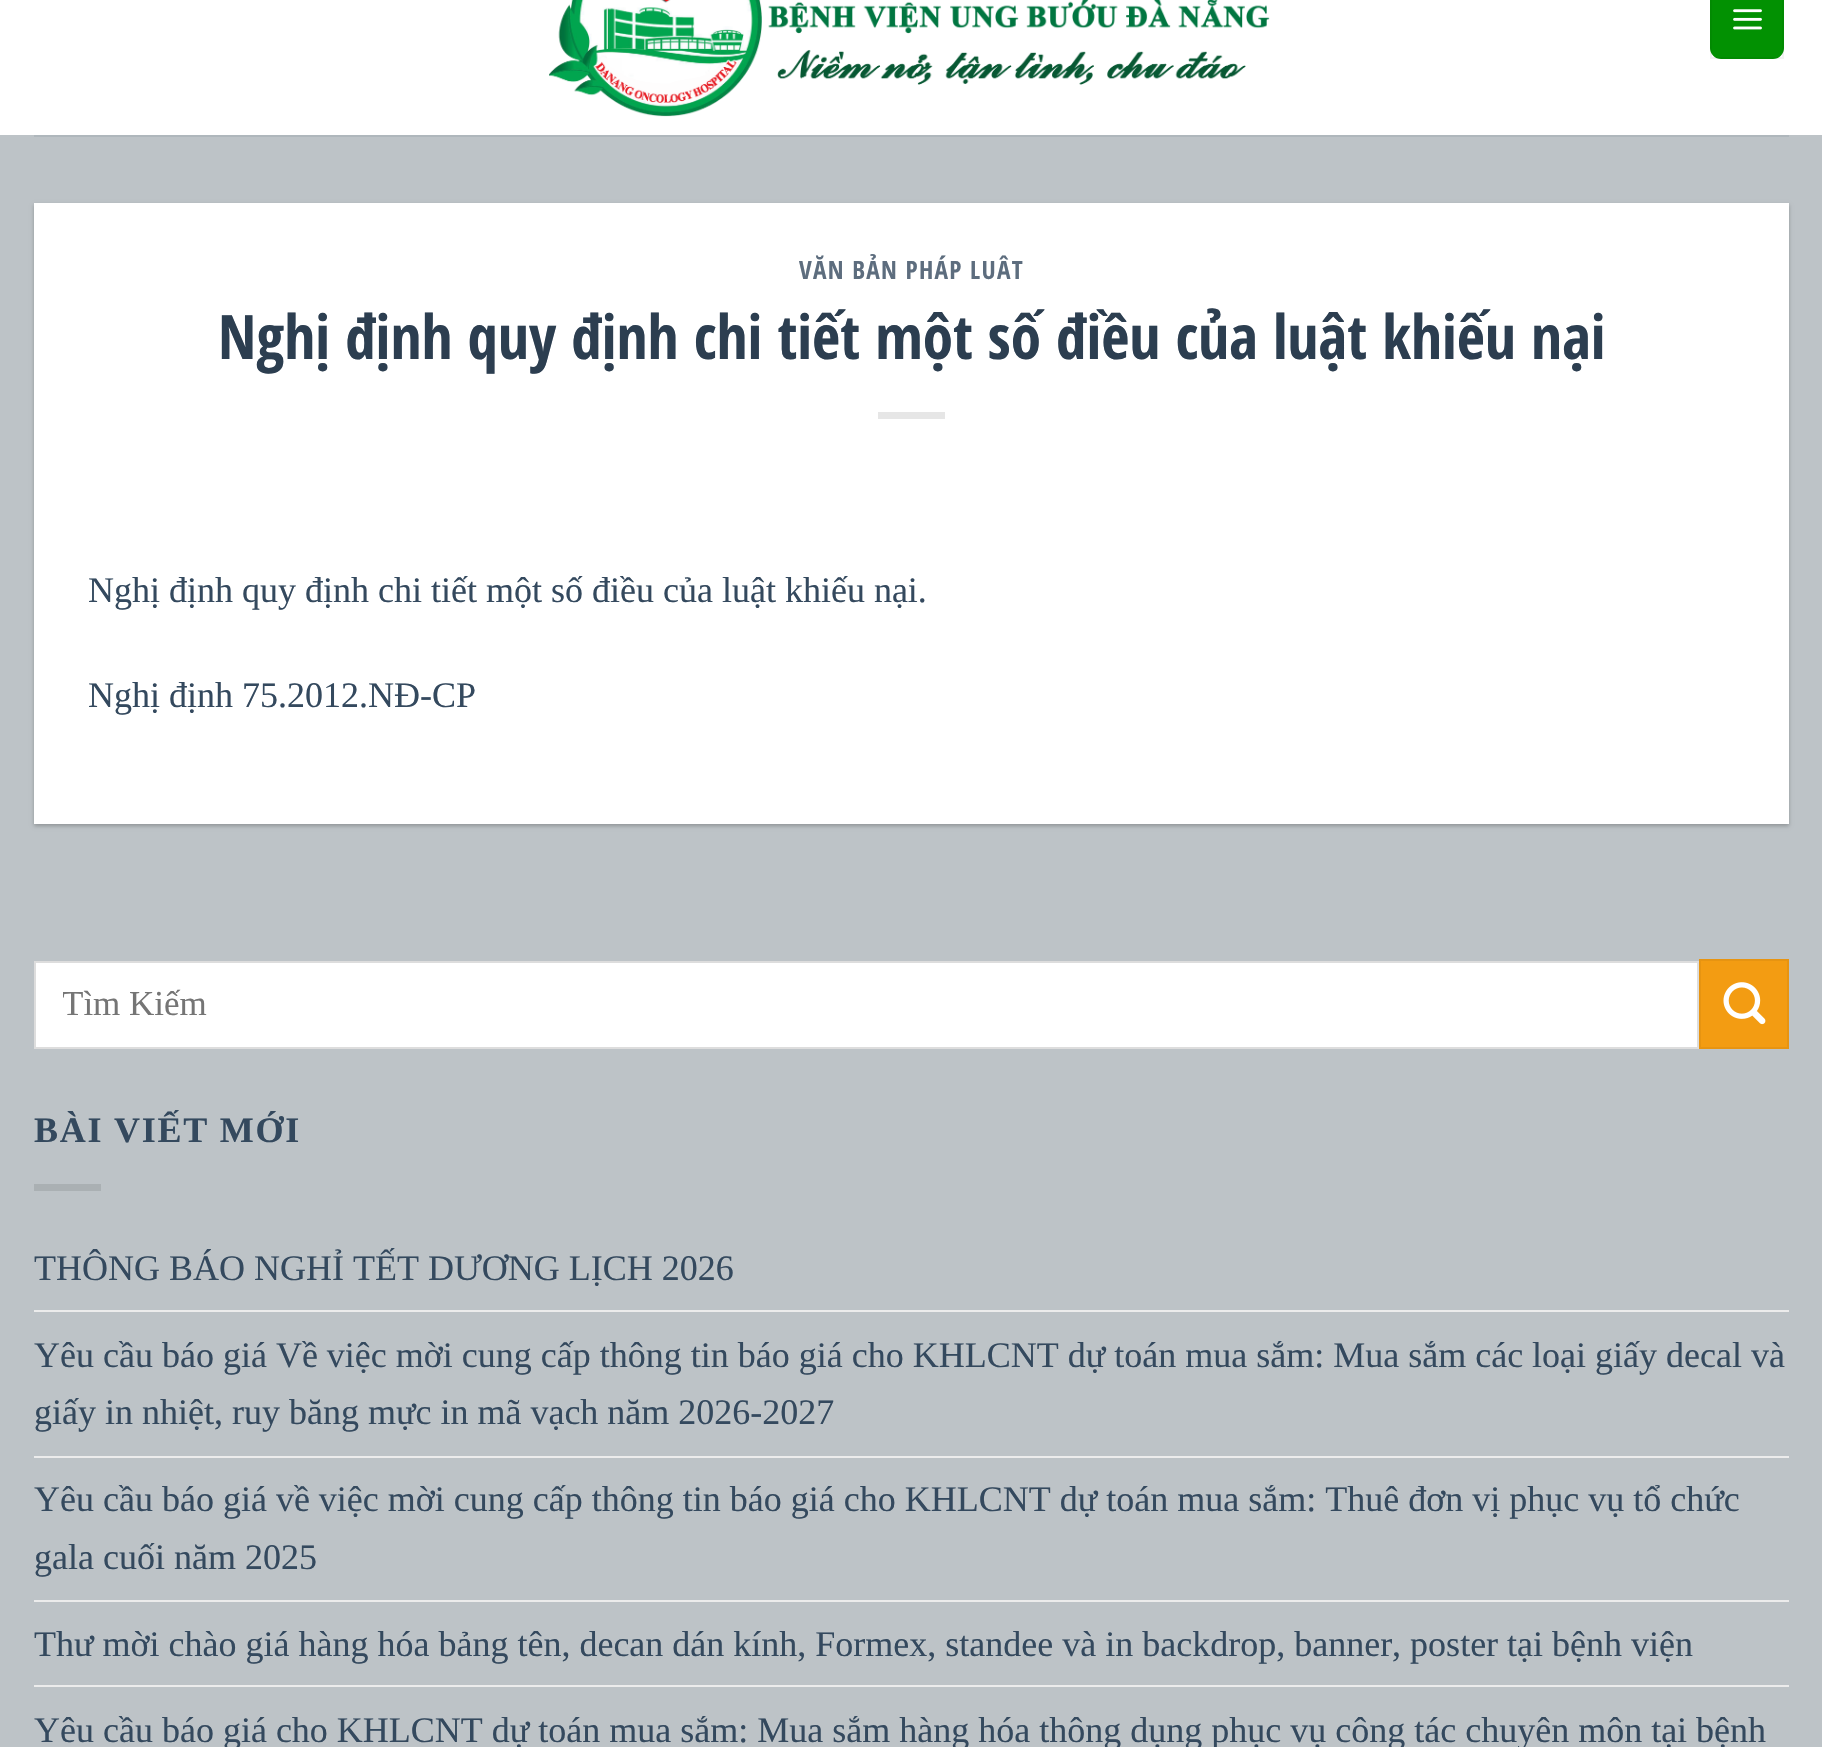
#include "include/core/SkBlurTypes.h"
#include "include/core/SkCanvas.h"
#include "include/core/SkData.h"
#include "include/core/SkFont.h"
#include "include/core/SkFontMgr.h"
#include "include/core/SkImage.h"
#include "include/core/SkMaskFilter.h"
#include "include/core/SkPaint.h"
#include "include/core/SkPathBuilder.h"
#include "include/core/SkTextBlob.h"
#include "include/effects/SkDashPathEffect.h"
#include "include/effects/SkGradientShader.h"
#include "include/utils/SkParsePath.h"

extern sk_sp<SkFontMgr> fontMgr;

void draw(SkCanvas* canvas) {
    SkPaint p;
    p.setAntiAlias(true);
    auto font = [&](const char* family, int weight, float size, bool italic = false) {
        SkFontStyle style(weight, SkFontStyle::kNormal_Width,
            italic ? SkFontStyle::kItalic_Slant : SkFontStyle::kUpright_Slant);
        SkFont result(fontMgr->matchFamilyStyle(family, style), size);
        result.setSubpixel(true);
        return result;
    };
    auto drawTracked = [&](const char* s, float x, float y, const SkFont& font, const SkPaint& ink, float letter, float word) {
        std::vector<SkGlyphID> glyphs(font.countText(s, strlen(s), SkTextEncoding::kUTF8));
        std::vector<float> xs(glyphs.size());
        font.textToGlyphs(s, strlen(s), SkTextEncoding::kUTF8, glyphs);
        font.getXPos(glyphs, xs, x);
        float extra = 0;
        for (size_t i = 0; i < glyphs.size(); i++) {
            xs[i] += extra;
            extra += letter + word * (glyphs[i] == font.unicharToGlyph(' '));
        }
        canvas->drawTextBlob(SkTextBlob::MakeFromPosHGlyphs(glyphs, xs, y, font), 0, 0, ink);
    };
    auto drawPhoto = [&](const char* path, float l, float t, float r, float b) {
        auto image = SkImages::DeferredFromEncodedData(SkData::MakeFromFileName(path));
        canvas->drawImageRect(image, SkRect::MakeLTRB(l, t, r, b), SkSamplingOptions());
    };
    canvas->clear(0xFFFFFFFF);
    drawPhoto("media/1.png", 549, 0, 1270, 117);
    p.setColor(0xFF029102);
    canvas->drawRoundRect(SkRect::MakeLTRB(1710, -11, 1784, 59), 11, 11, p);
    p.setStyle(SkPaint::kStroke_Style);
    p.setStrokeWidth(2);
    p.setColor(0x0D000000);
    canvas->drawRect(SkRect::MakeLTRB(1711, -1, 1783, 58), p);
    drawPhoto("media/2.png", 1733, 9, 1762, 30);
    p.setStyle(SkPaint::kFill_Style);
    p.setColor(0xFFBDC3C7);
    canvas->drawRect(SkRect::MakeLTRB(0, 135, 1822, 1747), p);
    p.setColor(0xFFAFB7BC);
    canvas->drawRect(SkRect::MakeLTRB(34, 135, 1789, 137), p);
    p.setColor(0x3D000000);
    p.setMaskFilter(SkMaskFilter::MakeBlur(kNormal_SkBlurStyle, 2));
    canvas->drawRect(SkRect::MakeLTRB(34, 205, 1789, 826), p);
    p.setMaskFilter(nullptr);
    p.setColor(0xFFFFFFFF);
    canvas->drawRect(SkRect::MakeLTRB(34, 203, 1789, 824), p);
    auto font1 = font("Open Sans Condensed", 700, 25.25f);
    p.setColor(0xFF5D6D7E);
    drawTracked("VĂN BẢN PHÁP LUÂT", 799, 279, font1, p, 1.25f, 0);
    auto font2 = font("Open Sans Condensed", 700, 61.2f);
    p.setColor(0xFF2C3E50);
    canvas->drawString("Nghị định quy định chi tiết một số điều của luật khiếu nại", 218, 359, font2, p);
    p.setColor(0xFFE6E6E6);
    canvas->drawRect(SkRect::MakeLTRB(878, 412, 945, 419), p);
    auto font3 = font("Liberation Serif", 400, 36);
    p.setColor(0xFF34495E);
    canvas->drawString("Nghị định quy định chi tiết một số điều của luật khiếu nại.", 88, 602, font3, p);
    canvas->drawString("Nghị định 75.2012.NĐ-CP", 88, 707, font3, p);
    p.setColor(0xFFFFFFFF);
    canvas->drawRect(SkRect::MakeLTRB(35, 962, 1698, 1048), p);
    p.setStyle(SkPaint::kStroke_Style);
    p.setColor(0xFFDDDDDD);
    canvas->drawRect(SkRect::MakeLTRB(35, 962, 1698, 1048), p);
    canvas->save();
    canvas->clipRect(SkRect::MakeLTRB(63, 983, 1663, 1024));
    auto font4 = font("Liberation Serif", 400, 35);
    p.setStyle(SkPaint::kFill_Style);
    p.setColor(0xFF757575);
    canvas->drawString("Tìm Kiếm", 62, 1015, font4, p);
    canvas->restore();
    p.setColor(0xFFF39C12);
    canvas->drawRect(SkRect::MakeLTRB(1700, 960, 1788, 1048), p);
    p.setStyle(SkPaint::kStroke_Style);
    p.setColor(0xFFE79411);
    canvas->drawRect(SkRect::MakeLTRB(1700, 960, 1788, 1048), p);
    drawPhoto("media/3.png", 1723, 982, 1766, 1025);
    auto font5 = font("Liberation Serif", 700, 36);
    p.setStyle(SkPaint::kFill_Style);
    p.setColor(0xFF34495E);
    drawTracked("BÀI VIẾT MỚI", 34, 1142, font5, p, 1.75f, 0);
    p.setColor(0xFFAAB0B3);
    canvas->drawRect(SkRect::MakeLTRB(34, 1184, 101, 1191), p);
    p.setColor(0xFF34495E);
    canvas->drawString("THÔNG BÁO NGHỈ TẾT DƯƠNG LỊCH 2026", 34, 1280, font3, p);
    p.setColor(0xFFECECEC);
    canvas->drawRect(SkRect::MakeLTRB(34, 1310, 1789, 1312), p);
    p.setColor(0xFF34495E);
    canvas->drawString("Yêu cầu báo giá Về việc mời cung cấp thông tin báo giá cho KHLCNT dự toán mua sắm: Mua sắm các loại giấy decal và", 34, 1367, font3, p);
    canvas->drawString("giấy in nhiệt, ruy băng mực in mã vạch năm 2026-2027", 34, 1424, font3, p);
    p.setColor(0xFFECECEC);
    canvas->drawRect(SkRect::MakeLTRB(34, 1456, 1789, 1458), p);
    p.setColor(0xFF34495E);
    canvas->drawString("Yêu cầu báo giá về việc mời cung cấp thông tin báo giá cho KHLCNT dự toán mua sắm: Thuê đơn vị phục vụ tổ chức", 34, 1511, font3, p);
    canvas->drawString("gala cuối năm 2025", 34, 1569, font3, p);
    p.setColor(0xFFECECEC);
    canvas->drawRect(SkRect::MakeLTRB(34, 1600, 1789, 1602), p);
    p.setColor(0xFF34495E);
    canvas->drawString("Thư mời chào giá hàng hóa bảng tên, decan dán kính, Formex, standee và in backdrop, banner, poster tại bệnh viện", 34, 1656, font3, p);
    p.setColor(0xFFECECEC);
    canvas->drawRect(SkRect::MakeLTRB(34, 1685, 1789, 1687), p);
    p.setColor(0xFF34495E);
    canvas->drawString("Yêu cầu báo giá cho KHLCNT dự toán mua sắm: Mua sắm hàng hóa thông dụng phục vụ công tác chuyên môn tại bệnh", 34, 1742, font3, p);
}
